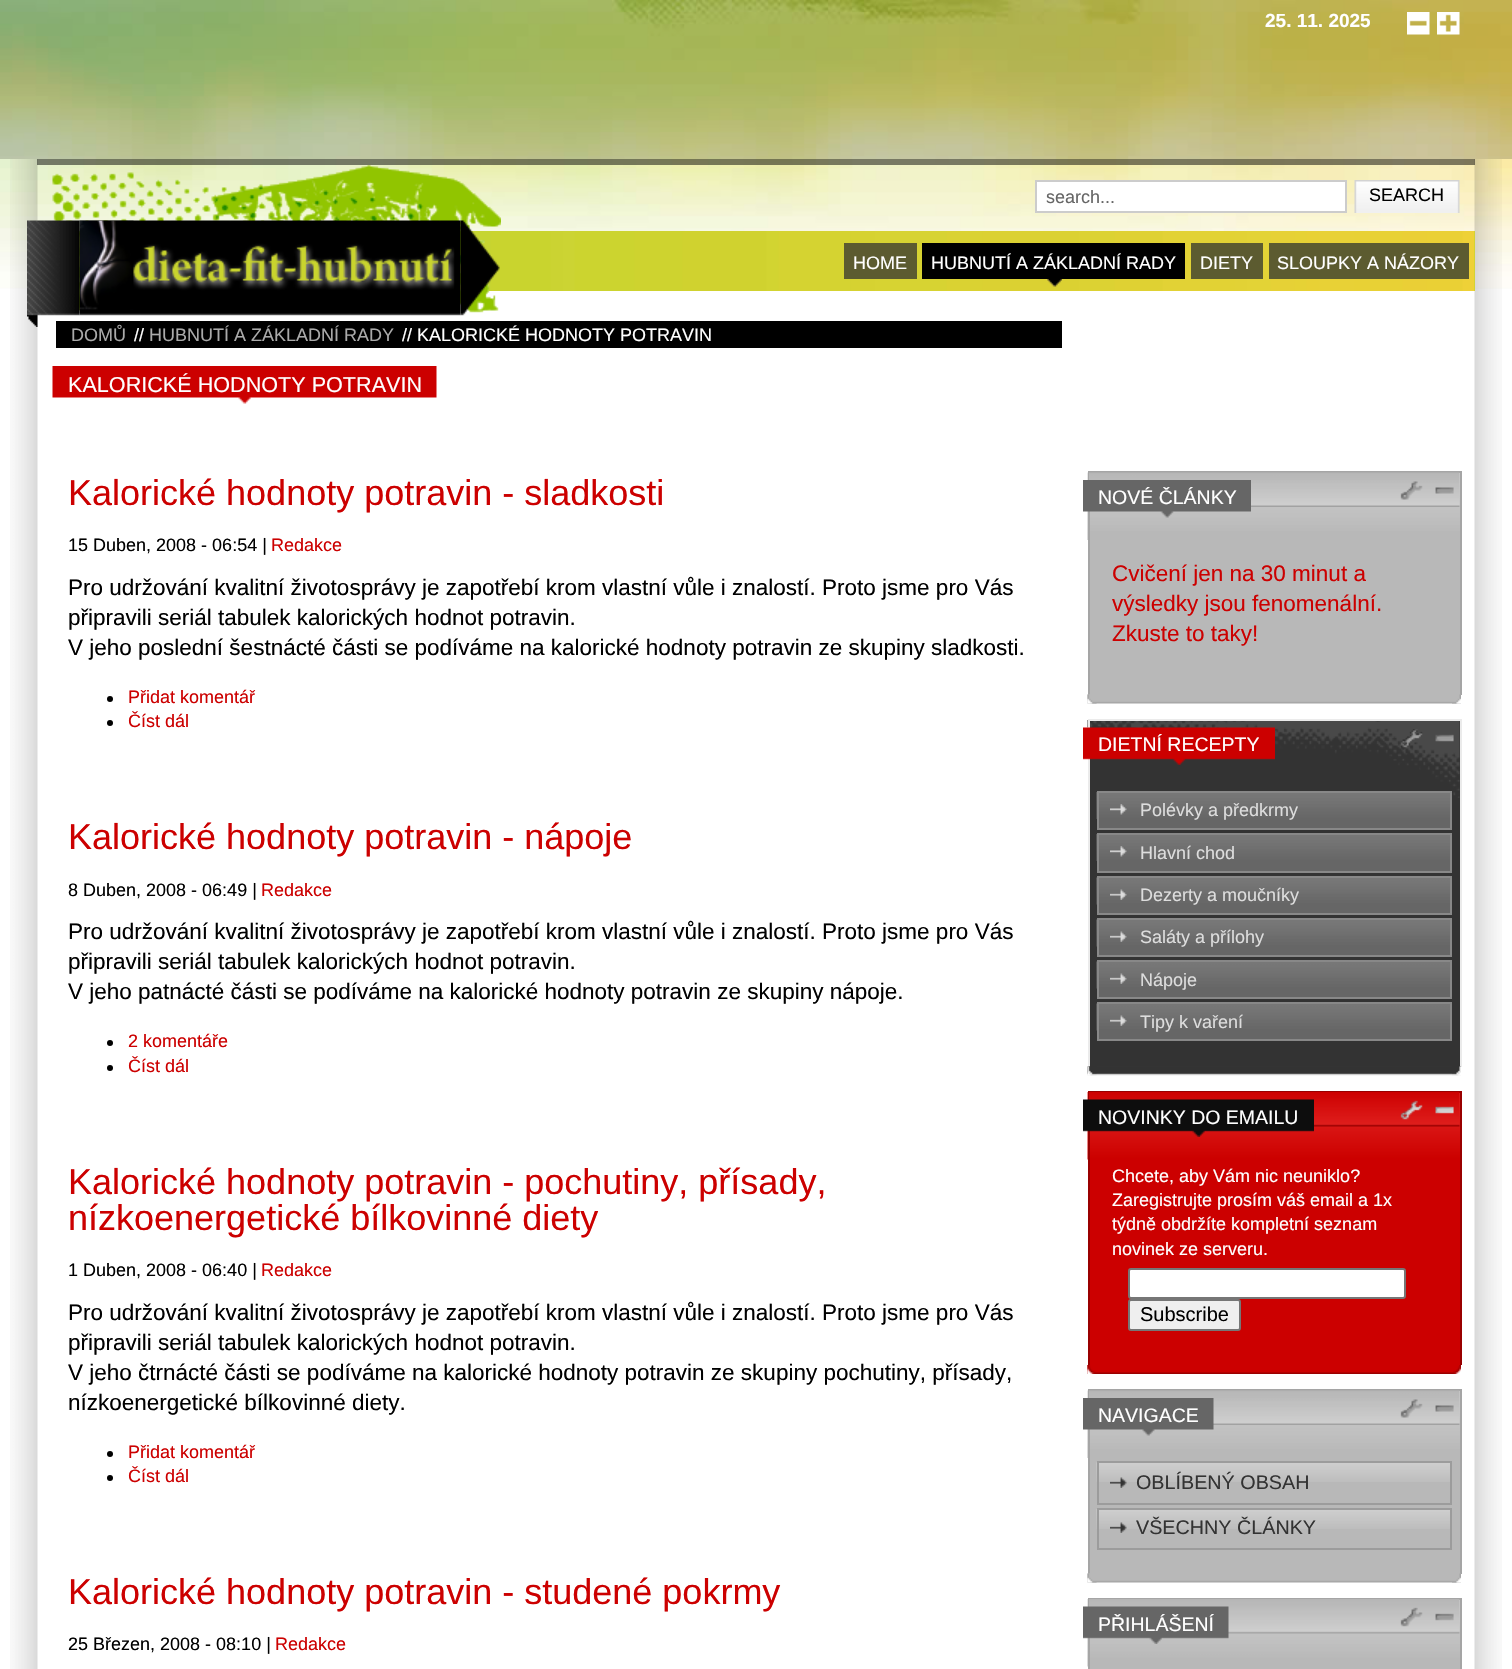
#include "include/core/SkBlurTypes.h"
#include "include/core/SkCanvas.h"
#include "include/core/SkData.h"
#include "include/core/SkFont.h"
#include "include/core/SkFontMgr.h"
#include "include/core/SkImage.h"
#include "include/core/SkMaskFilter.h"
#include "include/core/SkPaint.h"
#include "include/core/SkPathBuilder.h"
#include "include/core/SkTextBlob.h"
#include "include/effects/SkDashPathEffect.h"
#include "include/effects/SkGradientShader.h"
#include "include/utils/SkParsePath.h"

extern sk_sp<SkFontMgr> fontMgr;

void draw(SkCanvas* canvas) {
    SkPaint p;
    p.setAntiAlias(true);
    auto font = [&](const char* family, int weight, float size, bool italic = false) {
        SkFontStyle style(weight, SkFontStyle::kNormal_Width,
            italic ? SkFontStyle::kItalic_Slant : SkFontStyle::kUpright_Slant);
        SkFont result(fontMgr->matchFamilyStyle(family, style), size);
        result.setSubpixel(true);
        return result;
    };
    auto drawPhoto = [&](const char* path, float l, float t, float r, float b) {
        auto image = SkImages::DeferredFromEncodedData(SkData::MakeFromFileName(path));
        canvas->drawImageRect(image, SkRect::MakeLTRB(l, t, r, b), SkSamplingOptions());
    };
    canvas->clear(0xFFFFFFFF);
    drawPhoto("media/1.png", 0, 0, 1512, 289);
    p.setColor(0x2E000000);
    canvas->drawRect(SkRect::MakeLTRB(0, 0, 1512, 159), p);
    auto font1 = font("Liberation Sans", 700, 19);
    p.setColor(0xFFFFFFFF);
    canvas->drawString("25. 11. 2025", 1265, 27, font1, p);
    drawPhoto("media/2.png", 1407, 12, 1430, 35);
    drawPhoto("media/3.png", 1437, 12, 1460, 35);
    drawPhoto("media/4.png", 10, 159, 38, 1669);
    drawPhoto("media/5.png", 1474, 159, 1502, 1669);
    p.setColor(0x80000000);
    canvas->drawRect(SkRect::MakeLTRB(37, 159, 1475, 165), p);
    p.setColor(0xFFBBD52D);
    canvas->drawRect(SkRect::MakeLTRB(1474, 231, 1475, 291), p);
    drawPhoto("media/12.png", 79, 231, 1475, 291);
    drawPhoto("media/6.png", 52, 165, 501, 313);
    p.setColor(0xFFFFFFFF);
    canvas->drawRect(SkRect::MakeLTRB(1036, 181, 1346, 212), p);
    p.setStyle(SkPaint::kStroke_Style);
    p.setStrokeWidth(2);
    p.setColor(0xFFCCCCCC);
    canvas->drawRect(SkRect::MakeLTRB(1036, 181, 1346, 212), p);
    auto font2 = font("Liberation Sans", 400, 18);
    p.setStyle(SkPaint::kFill_Style);
    p.setColor(0xFF666666);
    canvas->drawString("search...", 1046, 203, font2, p);
    drawPhoto("media/7.png", 1354, 180, 1460, 213);
    p.setColor(0xFF000000);
    canvas->drawString("SEARCH", 1369, 201, font2, p);
    canvas->drawRect(SkRect::MakeLTRB(56, 321, 1062, 348), p);
    p.setColor(0xFFAAAAAA);
    canvas->drawString("DOMŮ", 71, 341, font2, p);
    drawPhoto("media/8.png", 27, 220, 80, 327);
    drawPhoto("media/9.png", 460, 220, 500, 316);
    drawPhoto("media/10.png", 79, 220, 461, 316);
    drawPhoto("media/11.png", 79, 220, 455, 310);
    p.setColor(0xFF5C5B30);
    canvas->drawRect(SkRect::MakeLTRB(844, 243, 917, 279), p);
    p.setColor(0xFFFFFFFF);
    canvas->drawString("HOME", 853, 269, font2, p);
    p.setColor(0xFF000000);
    canvas->drawRect(SkRect::MakeLTRB(922, 243, 1185, 279), p);
    drawPhoto("media/13.png", 1047, 279, 1062, 287);
    p.setColor(0xFFFFFFFF);
    canvas->drawString("HUBNUTÍ A ZÁKLADNÍ RADY", 931, 269, font2, p);
    p.setColor(0xFF5C5B30);
    canvas->drawRect(SkRect::MakeLTRB(1191, 243, 1263, 279), p);
    p.setColor(0xFFFFFFFF);
    canvas->drawString("DIETY", 1200, 269, font2, p);
    p.setColor(0xFF5C5B30);
    canvas->drawRect(SkRect::MakeLTRB(1269, 243, 1469, 279), p);
    p.setColor(0xFFFFFFFF);
    canvas->drawString("SLOUPKY A NÁZORY", 1277, 269, font2, p);
    canvas->drawString("//", 134, 341, font2, p);
    p.setColor(0xFFAAAAAA);
    canvas->drawString("HUBNUTÍ A ZÁKLADNÍ RADY", 149, 341, font2, p);
    p.setColor(0xFFFFFFFF);
    canvas->drawString("// KALORICKÉ HODNOTY POTRAVIN", 402, 341, font2, p);
    drawPhoto("media/14.png", 52, 366, 437, 404);
    auto font3 = font("Liberation Sans", 400, 21.6f);
    canvas->drawString("KALORICKÉ HODNOTY POTRAVIN", 68, 392, font3, p);
    auto font4 = font("Liberation Sans", 400, 36);
    p.setColor(0xFFCC0000);
    canvas->drawString("Kalorické hodnoty potravin - sladkosti", 68, 505, font4, p);
    p.setColor(0xFF000000);
    canvas->drawString("15 Duben, 2008 - 06:54 |", 68, 551, font2, p);
    p.setColor(0xFFCC0000);
    canvas->drawString("Redakce", 271, 551, font2, p);
    auto font5 = font("Liberation Sans", 400, 22.5f);
    p.setColor(0xFF000000);
    {
        const struct { const char* s; float x, y; } items[] = {
            {"Pro udržování kvalitní životosprávy je zapotřebí krom vlastní vůle i znalostí. Proto jsme pro Vás", 68, 595},
            {"připravili seriál tabulek kalorických hodnot potravin.", 68, 625},
            {"V jeho poslední šestnácté části se podíváme na kalorické hodnoty potravin ze skupiny sladkosti.", 68, 655},
        };
        for (auto [s, x, y] : items) {
            canvas->drawString(s, x, y, font5, p);
        }
    }
    canvas->drawCircle(110, 699, 3, p);
    p.setColor(0xFFCC0000);
    canvas->drawString("Přidat komentář", 128, 703, font2, p);
    p.setColor(0xFF000000);
    canvas->drawCircle(110, 723, 3, p);
    p.setColor(0xFFCC0000);
    canvas->drawString("Číst dál", 128, 727, font2, p);
    canvas->drawString("Kalorické hodnoty potravin - nápoje", 68, 849, font4, p);
    p.setColor(0xFF000000);
    canvas->drawString("8 Duben, 2008 - 06:49 |", 68, 896, font2, p);
    p.setColor(0xFFCC0000);
    canvas->drawString("Redakce", 261, 896, font2, p);
    p.setColor(0xFF000000);
    {
        const struct { const char* s; float x, y; } items[] = {
            {"Pro udržování kvalitní životosprávy je zapotřebí krom vlastní vůle i znalostí. Proto jsme pro Vás", 68, 939},
            {"připravili seriál tabulek kalorických hodnot potravin.", 68, 969},
            {"V jeho patnácté části se podíváme na kalorické hodnoty potravin ze skupiny nápoje.", 68, 999},
        };
        for (auto [s, x, y] : items) {
            canvas->drawString(s, x, y, font5, p);
        }
    }
    canvas->drawCircle(110, 1043, 3, p);
    p.setColor(0xFFCC0000);
    canvas->drawString("2 komentáře", 128, 1047, font2, p);
    p.setColor(0xFF000000);
    canvas->drawCircle(110, 1068, 3, p);
    p.setColor(0xFFCC0000);
    canvas->drawString("Číst dál", 128, 1072, font2, p);
    canvas->drawString("Kalorické hodnoty potravin - pochutiny, přísady,", 68, 1194, font4, p);
    canvas->drawString("nízkoenergetické bílkovinné diety", 68, 1230, font4, p);
    p.setColor(0xFF000000);
    canvas->drawString("1 Duben, 2008 - 06:40 |", 68, 1276, font2, p);
    p.setColor(0xFFCC0000);
    canvas->drawString("Redakce", 261, 1276, font2, p);
    p.setColor(0xFF000000);
    {
        const struct { const char* s; float x, y; } items[] = {
            {"Pro udržování kvalitní životosprávy je zapotřebí krom vlastní vůle i znalostí. Proto jsme pro Vás", 68, 1320},
            {"připravili seriál tabulek kalorických hodnot potravin.", 68, 1350},
            {"V jeho čtrnácté části se podíváme na kalorické hodnoty potravin ze skupiny pochutiny, přísady,", 68, 1380},
            {"nízkoenergetické bílkovinné diety.", 68, 1410},
        };
        for (auto [s, x, y] : items) {
            canvas->drawString(s, x, y, font5, p);
        }
    }
    canvas->drawCircle(110, 1454, 3, p);
    p.setColor(0xFFCC0000);
    canvas->drawString("Přidat komentář", 128, 1458, font2, p);
    p.setColor(0xFF000000);
    canvas->drawCircle(110, 1478, 3, p);
    p.setColor(0xFFCC0000);
    canvas->drawString("Číst dál", 128, 1482, font2, p);
    canvas->drawString("Kalorické hodnoty potravin - studené pokrmy", 68, 1604, font4, p);
    p.setColor(0xFF000000);
    canvas->drawString("25 Březen, 2008 - 08:10 |", 68, 1650, font2, p);
    p.setColor(0xFFCC0000);
    canvas->drawString("Redakce", 275, 1650, font2, p);
    p.setColor(0xFFB8B8B8);
    canvas->drawRect(SkRect::MakeLTRB(1090, 540, 1460, 695), p);
    drawPhoto("media/15.png", 1087, 472, 1460, 540);
    {
        const struct { float l, t, r, b; SkColor color; } items[] = {
            {1088, 471, 1461, 473, 0xFFA5A5A5},
            {1460, 471, 1462, 695, 0xFFA5A5A5},
            {1088, 471, 1090, 695, 0xFFA5A5A5},
        };
        for (auto [l, t, r, b, color] : items) {
            p.setColor(color);
            canvas->drawRect(SkRect::MakeLTRB(l, t, r, b), p);
        }
    }
    drawPhoto("media/16.png", 1089, 472, 1460, 507);
    drawPhoto("media/17.png", 1083, 480, 1251, 518);
    auto font6 = font("Liberation Sans", 400, 19.5f);
    p.setColor(0xFFFFFFFF);
    canvas->drawString("NOVÉ ČLÁNKY", 1098, 504, font6, p);
    drawPhoto("media/18.png", 1400, 481, 1423, 500);
    drawPhoto("media/19.png", 1435, 487, 1454, 494);
    p.setColor(0xFFCC0000);
    {
        const struct { const char* s; float x, y; } items[] = {
            {"Cvičení jen na 30 minut a", 1112, 581},
            {"výsledky jsou fenomenální.", 1112, 611},
            {"Zkuste to taky!", 1112, 641},
        };
        for (auto [s, x, y] : items) {
            canvas->drawString(s, x, y, font5, p);
        }
    }
    drawPhoto("media/20.png", 1087, 694, 1461, 704);
    drawPhoto("media/21.png", 1452, 694, 1461, 704);
    drawPhoto("media/22.png", 1087, 694, 1097, 704);
    p.setColor(0xFF333333);
    canvas->drawRect(SkRect::MakeLTRB(1090, 721, 1460, 1067), p);
    drawPhoto("media/23.png", 1087, 720, 1460, 798);
    {
        const struct { float l, t, r, b; SkColor color; } items[] = {
            {1088, 719, 1461, 721, 0xFFEBEBEB},
            {1460, 719, 1462, 1067, 0xFFEBEBEB},
            {1088, 719, 1090, 1067, 0xFFEBEBEB},
        };
        for (auto [l, t, r, b, color] : items) {
            p.setColor(color);
            canvas->drawRect(SkRect::MakeLTRB(l, t, r, b), p);
        }
    }
    drawPhoto("media/24.png", 1083, 727, 1275, 765);
    p.setColor(0xFFFFFFFF);
    canvas->drawString("DIETNÍ RECEPTY", 1098, 751, font6, p);
    drawPhoto("media/25.png", 1400, 729, 1423, 748);
    drawPhoto("media/26.png", 1435, 734, 1454, 742);
    p.setColor(0xFF666666);
    canvas->drawRect(SkRect::MakeLTRB(1099, 819, 1450, 828), p);
    drawPhoto("media/27.png", 1096, 792, 1450, 819);
    p.setStyle(SkPaint::kStroke_Style);
    p.setColor(0xFF888888);
    canvas->drawRect(SkRect::MakeLTRB(1098, 792, 1451, 829), p);
    drawPhoto("media/28.png", 1110, 804, 1127, 815);
    p.setStyle(SkPaint::kFill_Style);
    p.setColor(0xFFDDDDDD);
    canvas->drawString("Polévky a předkrmy", 1140, 816, font2, p);
    p.setColor(0xFF666666);
    canvas->drawRect(SkRect::MakeLTRB(1099, 861, 1450, 871), p);
    drawPhoto("media/27.png", 1096, 834, 1450, 861);
    p.setStyle(SkPaint::kStroke_Style);
    p.setColor(0xFF888888);
    canvas->drawRect(SkRect::MakeLTRB(1098, 834, 1451, 872), p);
    drawPhoto("media/28.png", 1110, 846, 1127, 857);
    p.setStyle(SkPaint::kFill_Style);
    p.setColor(0xFFDDDDDD);
    canvas->drawString("Hlavní chod", 1140, 859, font2, p);
    p.setColor(0xFF666666);
    canvas->drawRect(SkRect::MakeLTRB(1099, 904, 1450, 913), p);
    drawPhoto("media/29.png", 1096, 877, 1450, 905);
    p.setStyle(SkPaint::kStroke_Style);
    p.setColor(0xFF888888);
    canvas->drawRect(SkRect::MakeLTRB(1098, 877, 1451, 914), p);
    drawPhoto("media/30.png", 1110, 889, 1127, 900);
    p.setStyle(SkPaint::kFill_Style);
    p.setColor(0xFFDDDDDD);
    canvas->drawString("Dezerty a moučníky", 1140, 901, font2, p);
    p.setColor(0xFF666666);
    canvas->drawRect(SkRect::MakeLTRB(1099, 946, 1450, 955), p);
    drawPhoto("media/31.png", 1096, 919, 1450, 947);
    p.setStyle(SkPaint::kStroke_Style);
    p.setColor(0xFF888888);
    canvas->drawRect(SkRect::MakeLTRB(1098, 919, 1451, 956), p);
    drawPhoto("media/30.png", 1110, 931, 1127, 942);
    p.setStyle(SkPaint::kFill_Style);
    p.setColor(0xFFDDDDDD);
    canvas->drawString("Saláty a přílohy", 1140, 943, font2, p);
    p.setColor(0xFF666666);
    canvas->drawRect(SkRect::MakeLTRB(1099, 988, 1450, 997), p);
    drawPhoto("media/32.png", 1096, 961, 1450, 989);
    p.setStyle(SkPaint::kStroke_Style);
    p.setColor(0xFF888888);
    canvas->drawRect(SkRect::MakeLTRB(1098, 961, 1451, 998), p);
    drawPhoto("media/30.png", 1110, 973, 1127, 984);
    p.setStyle(SkPaint::kFill_Style);
    p.setColor(0xFFDDDDDD);
    canvas->drawString("Nápoje", 1140, 986, font2, p);
    p.setColor(0xFF666666);
    canvas->drawRect(SkRect::MakeLTRB(1099, 1030, 1450, 1039), p);
    drawPhoto("media/33.png", 1096, 1003, 1450, 1031);
    p.setStyle(SkPaint::kStroke_Style);
    p.setColor(0xFF888888);
    canvas->drawRect(SkRect::MakeLTRB(1098, 1003, 1451, 1040), p);
    drawPhoto("media/30.png", 1110, 1015, 1127, 1026);
    p.setStyle(SkPaint::kFill_Style);
    p.setColor(0xFFDDDDDD);
    canvas->drawString("Tipy k vaření", 1140, 1028, font2, p);
    drawPhoto("media/34.png", 1087, 1066, 1461, 1076);
    drawPhoto("media/35.png", 1452, 1066, 1461, 1076);
    drawPhoto("media/36.png", 1087, 1066, 1097, 1076);
    p.setColor(0xFFCC0000);
    canvas->drawRect(SkRect::MakeLTRB(1090, 1159, 1460, 1365), p);
    drawPhoto("media/37.png", 1087, 1092, 1460, 1160);
    {
        const struct { float l, t, r, b; SkColor color; } items[] = {
            {1088, 1091, 1461, 1093, 0xFF990000},
            {1460, 1091, 1462, 1365, 0xFF990000},
            {1088, 1091, 1090, 1365, 0xFF990000},
        };
        for (auto [l, t, r, b, color] : items) {
            p.setColor(color);
            canvas->drawRect(SkRect::MakeLTRB(l, t, r, b), p);
        }
    }
    drawPhoto("media/38.png", 1089, 1092, 1460, 1127);
    drawPhoto("media/39.png", 1083, 1099, 1314, 1137);
    p.setColor(0xFFFFFFFF);
    canvas->drawString("NOVINKY DO EMAILU", 1098, 1124, font6, p);
    drawPhoto("media/40.png", 1400, 1100, 1423, 1120);
    drawPhoto("media/41.png", 1435, 1106, 1454, 1114);
    {
        const struct { const char* s; float x, y; } items[] = {
            {"Chcete, aby Vám nic neuniklo?", 1112, 1182},
            {"Zaregistrujte prosím váš email a 1x", 1112, 1206},
            {"týdně obdržíte kompletní seznam", 1112, 1230},
            {"novinek ze serveru.", 1112, 1255},
        };
        for (auto [s, x, y] : items) {
            canvas->drawString(s, x, y, font2, p);
        }
    }
    canvas->drawRoundRect(SkRect::MakeLTRB(1129, 1269, 1405, 1298), 2, 2, p);
    p.setStyle(SkPaint::kStroke_Style);
    p.setColor(0xFF767676);
    canvas->drawRoundRect(SkRect::MakeLTRB(1129, 1269, 1405, 1298), 2, 2, p);
    p.setStyle(SkPaint::kFill_Style);
    p.setColor(0xFFEFEFEF);
    canvas->drawRoundRect(SkRect::MakeLTRB(1129, 1300, 1240, 1330), 2, 2, p);
    p.setStyle(SkPaint::kStroke_Style);
    p.setColor(0xFF767676);
    canvas->drawRoundRect(SkRect::MakeLTRB(1129, 1300, 1240, 1330), 2, 2, p);
    auto font7 = font("Liberation Sans", 400, 20);
    p.setStyle(SkPaint::kFill_Style);
    p.setColor(0xFF000000);
    canvas->drawString("Subscribe", 1140, 1321, font7, p);
    drawPhoto("media/42.png", 1087, 1365, 1453, 1374);
    drawPhoto("media/43.png", 1453, 1365, 1461, 1374);
    drawPhoto("media/44.png", 1087, 1365, 1096, 1374);
    p.setColor(0xFFB8B8B8);
    canvas->drawRect(SkRect::MakeLTRB(1090, 1458, 1460, 1574), p);
    drawPhoto("media/15.png", 1087, 1390, 1460, 1458);
    {
        const struct { float l, t, r, b; SkColor color; } items[] = {
            {1088, 1389, 1461, 1391, 0xFFA5A5A5},
            {1460, 1389, 1462, 1574, 0xFFA5A5A5},
            {1088, 1389, 1090, 1574, 0xFFA5A5A5},
        };
        for (auto [l, t, r, b, color] : items) {
            p.setColor(color);
            canvas->drawRect(SkRect::MakeLTRB(l, t, r, b), p);
        }
    }
    drawPhoto("media/45.png", 1089, 1390, 1460, 1425);
    drawPhoto("media/46.png", 1083, 1398, 1214, 1436);
    p.setColor(0xFFFFFFFF);
    canvas->drawString("NAVIGACE", 1098, 1422, font6, p);
    drawPhoto("media/47.png", 1400, 1399, 1423, 1418);
    drawPhoto("media/19.png", 1435, 1405, 1454, 1412);
    drawPhoto("media/48.png", 1096, 1462, 1450, 1482);
    p.setStyle(SkPaint::kStroke_Style);
    p.setColor(0xFF9C9C9C);
    canvas->drawRect(SkRect::MakeLTRB(1098, 1462, 1451, 1504), p);
    drawPhoto("media/49.png", 1110, 1477, 1127, 1488);
    auto font8 = font("Liberation Sans", 400, 19.75f);
    p.setStyle(SkPaint::kFill_Style);
    p.setColor(0xFF333333);
    canvas->drawString("OBLÍBENÝ OBSAH", 1136, 1489, font8, p);
    drawPhoto("media/50.png", 1096, 1509, 1450, 1529);
    p.setStyle(SkPaint::kStroke_Style);
    p.setColor(0xFF9C9C9C);
    canvas->drawRect(SkRect::MakeLTRB(1098, 1509, 1451, 1549), p);
    drawPhoto("media/51.png", 1110, 1522, 1127, 1533);
    p.setStyle(SkPaint::kFill_Style);
    p.setColor(0xFF333333);
    canvas->drawString("VŠECHNY ČLÁNKY", 1136, 1534, font8, p);
    drawPhoto("media/20.png", 1087, 1573, 1461, 1583);
    drawPhoto("media/21.png", 1452, 1573, 1461, 1583);
    drawPhoto("media/22.png", 1087, 1573, 1097, 1583);
    p.setColor(0xFFB8B8B8);
    canvas->drawRect(SkRect::MakeLTRB(1090, 1666, 1460, 1669), p);
    drawPhoto("media/52.png", 1087, 1599, 1460, 1667);
    {
        const struct { float l, t, r, b; SkColor color; } items[] = {
            {1088, 1598, 1461, 1600, 0xFFA5A5A5},
            {1460, 1598, 1462, 1669, 0xFFA5A5A5},
            {1088, 1598, 1090, 1669, 0xFFA5A5A5},
        };
        for (auto [l, t, r, b, color] : items) {
            p.setColor(color);
            canvas->drawRect(SkRect::MakeLTRB(l, t, r, b), p);
        }
    }
    drawPhoto("media/53.png", 1089, 1599, 1460, 1634);
    drawPhoto("media/54.png", 1083, 1606, 1229, 1644);
    p.setColor(0xFFFFFFFF);
    canvas->drawString("PŘIHLÁŠENÍ", 1098, 1631, font6, p);
    drawPhoto("media/55.png", 1400, 1607, 1423, 1627);
    drawPhoto("media/56.png", 1435, 1613, 1454, 1621);
}
